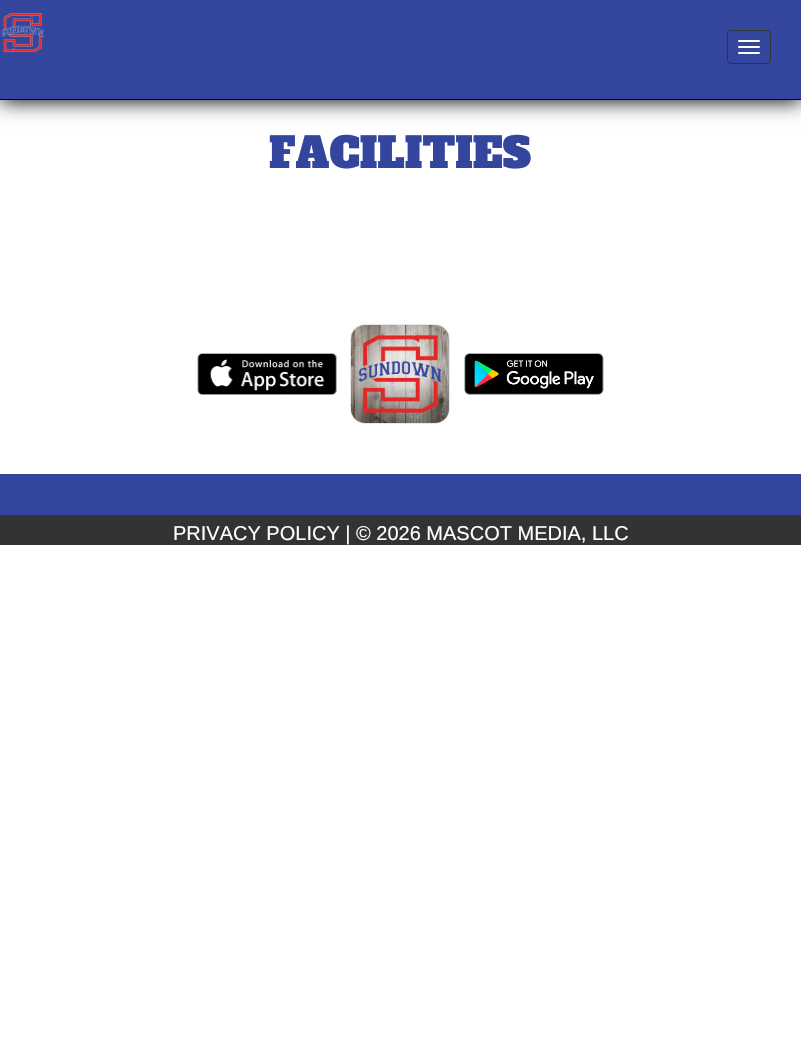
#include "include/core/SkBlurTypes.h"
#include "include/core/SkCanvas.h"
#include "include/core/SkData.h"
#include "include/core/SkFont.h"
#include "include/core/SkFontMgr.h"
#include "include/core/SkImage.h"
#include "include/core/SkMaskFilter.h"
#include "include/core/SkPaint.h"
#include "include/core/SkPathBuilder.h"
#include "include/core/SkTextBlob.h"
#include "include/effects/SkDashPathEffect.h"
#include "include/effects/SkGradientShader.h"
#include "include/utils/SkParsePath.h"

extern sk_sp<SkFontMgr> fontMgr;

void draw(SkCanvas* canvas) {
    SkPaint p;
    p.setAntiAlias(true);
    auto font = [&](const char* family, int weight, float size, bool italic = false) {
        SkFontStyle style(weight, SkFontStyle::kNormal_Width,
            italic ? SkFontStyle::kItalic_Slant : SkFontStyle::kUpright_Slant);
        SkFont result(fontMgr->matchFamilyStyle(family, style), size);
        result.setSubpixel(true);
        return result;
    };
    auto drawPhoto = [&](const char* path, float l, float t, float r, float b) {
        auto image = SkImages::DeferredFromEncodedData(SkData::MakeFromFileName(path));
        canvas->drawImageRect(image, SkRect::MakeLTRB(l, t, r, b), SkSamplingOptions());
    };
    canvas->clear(0xFFFFFFFF);
    p.setColor(0xFF000000);
    p.setMaskFilter(SkMaskFilter::MakeBlur(kNormal_SkBlurStyle, 10));
    canvas->drawRect(SkRect::MakeLTRB(0, 0, 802, 101), p);
    p.setMaskFilter(nullptr);
    p.setColor(0xFF33459D);
    canvas->drawRect(SkRect::MakeLTRB(0, 0, 801, 99), p);
    p.setColor(0xFF080808);
    canvas->drawRect(SkRect::MakeLTRB(0, 99, 801, 100), p);
    drawPhoto("media/1.png", 1, 13, 44, 53);
    p.setStyle(SkPaint::kStroke_Style);
    p.setStrokeWidth(1);
    p.setColor(0xFF333333);
    canvas->drawRoundRect(SkRect::MakeLTRB(727.5f, 30.5f, 770.5f, 63.5f), 3.5f, 3.5f, p);
    p.setStyle(SkPaint::kFill_Style);
    p.setColor(0xFFFFFFFF);
    canvas->drawRoundRect(SkRect::MakeLTRB(738, 40, 760, 42), 1, 1, p);
    canvas->drawRoundRect(SkRect::MakeLTRB(738, 46, 760, 48), 1, 1, p);
    canvas->drawRoundRect(SkRect::MakeLTRB(738, 52, 760, 54), 1, 1, p);
    auto font1 = font("Alfa Slab One", 400, 42);
    p.setColor(0xFF33459D);
    canvas->drawString("FACILITIES", 269, 168, font1, p);
    drawPhoto("media/2.png", 197, 353, 337, 395);
    p.setStyle(SkPaint::kStroke_Style);
    p.setColor(0xFFE6E7E8);
    canvas->drawRoundRect(SkRect::MakeLTRB(350.5f, 324.5f, 449.5f, 423.5f), 14.5f, 14.5f, p);
    drawPhoto("media/3.png", 351, 325, 449, 423);
    drawPhoto("media/4.png", 464, 353, 604, 395);
    p.setStyle(SkPaint::kFill_Style);
    p.setColor(0xFF33459D);
    canvas->drawRect(SkRect::MakeLTRB(0, 474, 801, 515), p);
    p.setColor(0xFF333333);
    canvas->drawRect(SkRect::MakeLTRB(0, 515, 801, 545), p);
    auto font2 = font("Liberation Sans", 400, 20);
    p.setColor(0xFFFFFFFF);
    canvas->drawString("PRIVACY POLICY | © 2026 MASCOT MEDIA, LLC", 173, 540, font2, p);
}
